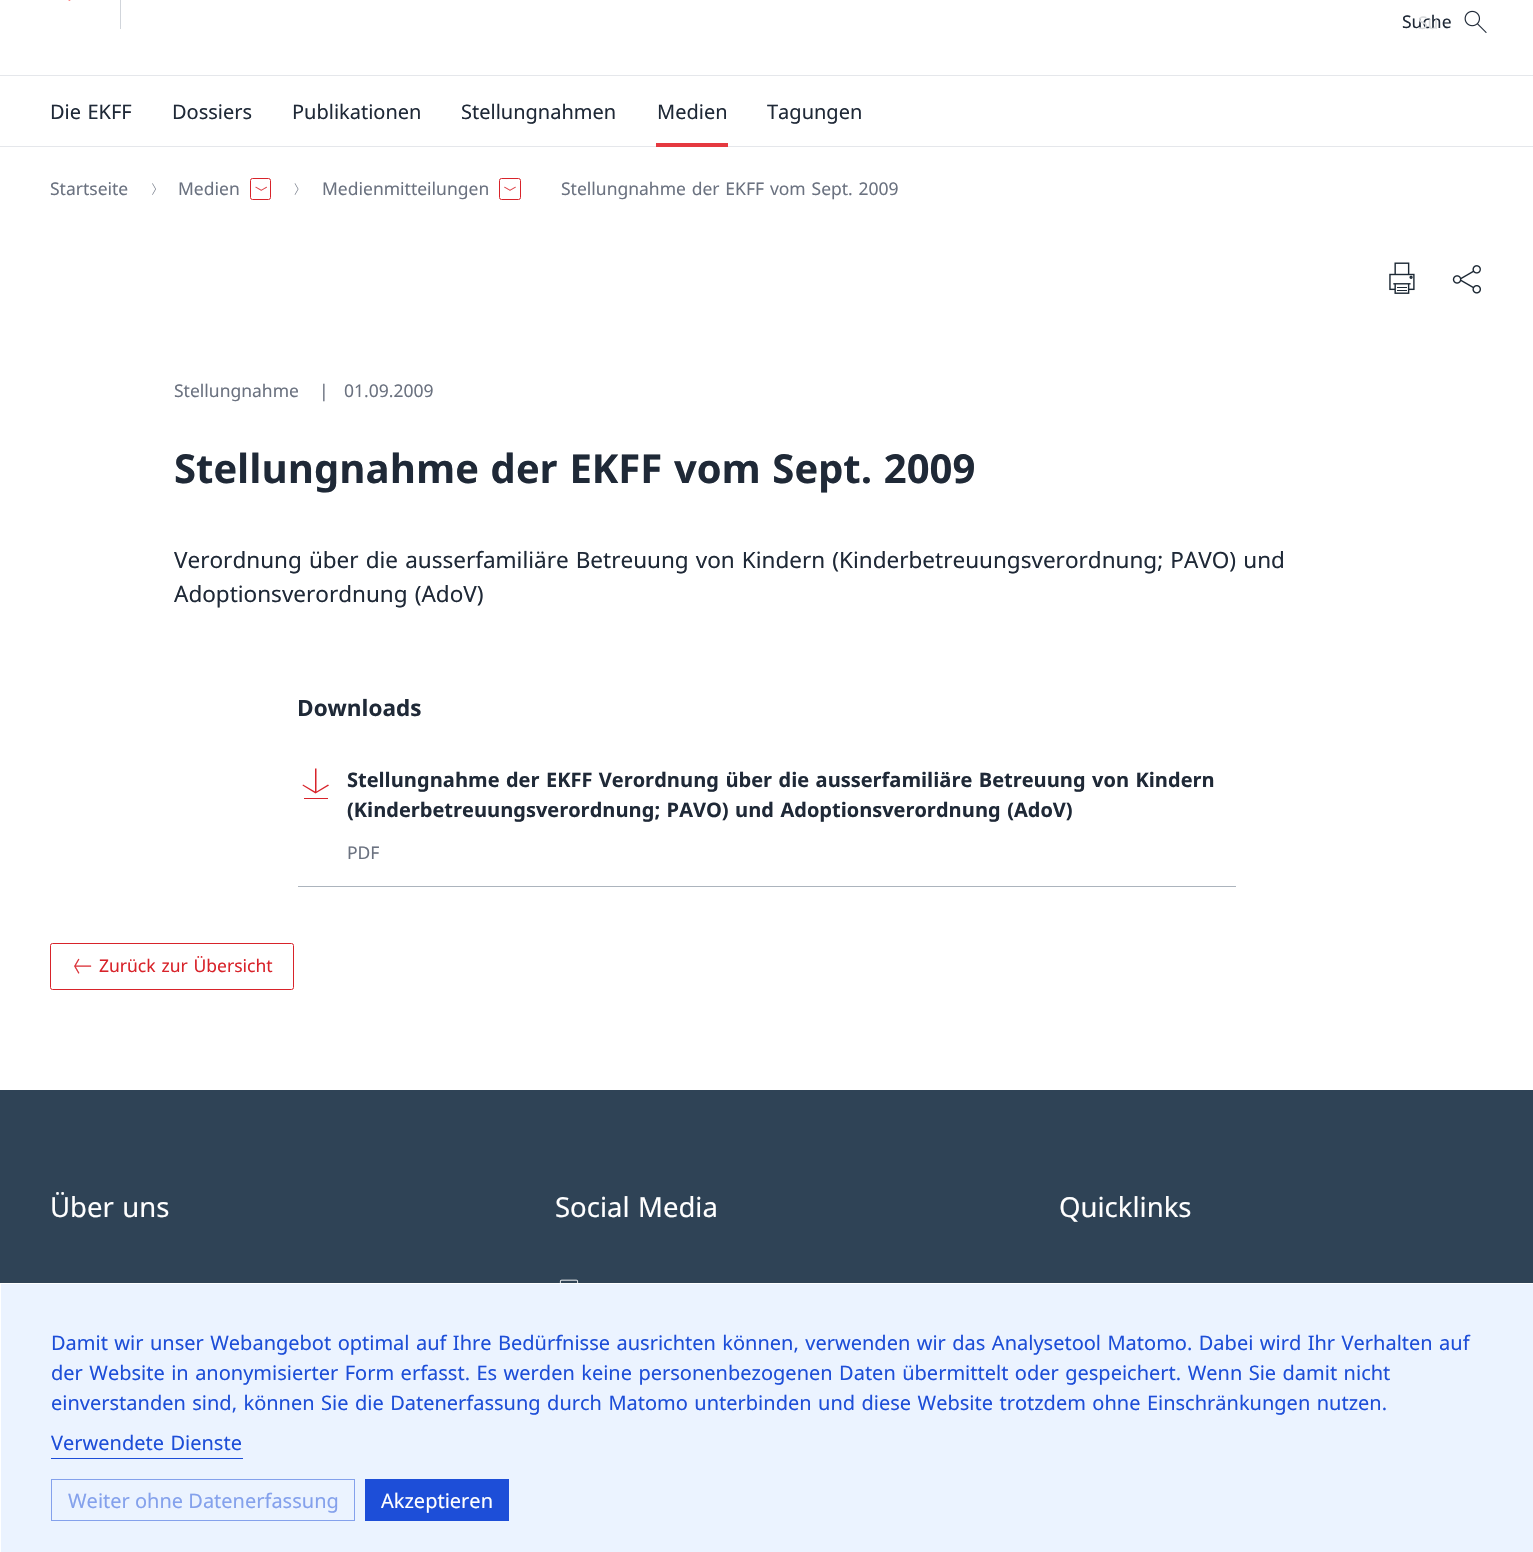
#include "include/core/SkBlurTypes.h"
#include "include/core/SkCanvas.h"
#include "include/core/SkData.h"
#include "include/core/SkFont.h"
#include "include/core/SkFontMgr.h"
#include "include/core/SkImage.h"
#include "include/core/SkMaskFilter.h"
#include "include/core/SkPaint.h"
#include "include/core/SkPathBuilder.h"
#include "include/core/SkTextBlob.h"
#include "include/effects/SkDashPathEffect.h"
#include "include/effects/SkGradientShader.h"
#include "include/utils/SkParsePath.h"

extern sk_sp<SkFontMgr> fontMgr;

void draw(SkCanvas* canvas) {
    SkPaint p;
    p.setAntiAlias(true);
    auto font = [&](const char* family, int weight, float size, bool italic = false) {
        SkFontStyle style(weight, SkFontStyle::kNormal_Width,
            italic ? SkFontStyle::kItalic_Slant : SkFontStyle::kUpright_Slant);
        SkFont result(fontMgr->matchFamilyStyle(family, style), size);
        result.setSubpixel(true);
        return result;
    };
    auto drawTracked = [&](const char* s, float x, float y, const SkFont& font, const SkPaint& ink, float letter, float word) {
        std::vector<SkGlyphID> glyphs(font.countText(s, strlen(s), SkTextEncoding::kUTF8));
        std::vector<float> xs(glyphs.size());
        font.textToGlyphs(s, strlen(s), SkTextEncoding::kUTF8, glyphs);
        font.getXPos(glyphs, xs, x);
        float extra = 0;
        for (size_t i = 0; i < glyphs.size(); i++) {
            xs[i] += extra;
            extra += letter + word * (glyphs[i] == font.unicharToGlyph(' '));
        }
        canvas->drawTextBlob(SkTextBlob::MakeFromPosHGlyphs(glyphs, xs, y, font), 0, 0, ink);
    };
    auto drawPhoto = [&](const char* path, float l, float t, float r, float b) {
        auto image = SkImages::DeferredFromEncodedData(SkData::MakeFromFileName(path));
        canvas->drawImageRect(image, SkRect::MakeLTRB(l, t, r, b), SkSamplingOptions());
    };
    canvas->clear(0xFFFFFFFF);
    p.setColor(0xFFE5E7EB);
    canvas->drawRect(SkRect::MakeLTRB(0, 75, 1533, 76), p);
    drawPhoto("media/1.png", 68, 0, 71, 1);
    p.setColor(0xFFD1D5DB);
    canvas->drawRect(SkRect::MakeLTRB(120, 0, 121, 29), p);
    auto font1 = font("Noto Sans", 400, 17.5f);
    p.setColor(0xFF1F2937);
    canvas->drawString("Suche", 1402, 28, font1, p);
    drawPhoto("media/2.png", 1464, 10, 1487, 33);
    p.setColor(0xFFD9DBDD);
    canvas->drawString("Su", 1418, 29, font1, p);
    p.setColor(0xFFE5E7EB);
    canvas->drawRect(SkRect::MakeLTRB(0, 146, 1533, 147), p);
    auto font2 = font("Noto Sans", 400, 20);
    p.setColor(0xFF1F2937);
    drawTracked("Die EKFF", 50, 119, font2, p, 0, 1.25f);
    {
        const struct { const char* s; float x, y; } items[] = {
            {"Dossiers", 172, 119},
            {"Publikationen", 292, 119},
            {"Stellungnahmen", 461, 119},
            {"Medien", 657, 119},
        };
        for (auto [s, x, y] : items) {
            canvas->drawString(s, x, y, font2, p);
        }
    }
    p.setColor(0xFFE53940);
    canvas->drawRect(SkRect::MakeLTRB(656, 143, 728, 147), p);
    p.setColor(0xFF1F2937);
    canvas->drawString("Tagungen", 767, 119, font2, p);
    p.setColor(0xFF6B7280);
    canvas->drawString("Startseite", 50, 195, font1, p);
    drawPhoto("media/3.png", 152, 183, 156, 195);
    canvas->drawString("Medien", 178, 195, font1, p);
    p.setStyle(SkPaint::kStroke_Style);
    p.setStrokeWidth(1);
    p.setColor(0xFFD8232A);
    canvas->drawRoundRect(SkRect::MakeLTRB(250.5f, 178.5f, 270.5f, 199.5f), 2, 2, p);
    drawPhoto("media/4.png", 255, 186, 267, 191);
    drawPhoto("media/5.png", 294, 183, 299, 195);
    p.setStyle(SkPaint::kFill_Style);
    p.setColor(0xFF6B7280);
    canvas->drawString("Medienmitteilungen", 322, 195, font1, p);
    p.setStyle(SkPaint::kStroke_Style);
    p.setColor(0xFFD8232A);
    canvas->drawRoundRect(SkRect::MakeLTRB(499.5f, 178.5f, 520.5f, 199.5f), 2, 2, p);
    drawPhoto("media/6.png", 504, 186, 516, 191);
    p.setStyle(SkPaint::kFill_Style);
    p.setColor(0xFF6B7280);
    drawTracked("Stellungnahme der EKFF vom Sept. 2009", 561, 195, font1, p, 0, 1.25f);
    drawPhoto("media/7.png", 1389, 262, 1415, 294);
    drawPhoto("media/8.png", 1452, 265, 1481, 294);
    {
        const struct { const char* s; float x, y; } items[] = {
            {"Stellungnahme", 174, 397},
            {"|", 319, 397},
            {"01.09.2009", 344, 397},
        };
        for (auto [s, x, y] : items) {
            canvas->drawString(s, x, y, font1, p);
        }
    }
    auto font3 = font("Noto Sans", 700, 40);
    p.setColor(0xFF1F2937);
    drawTracked("Stellungnahme der EKFF vom Sept. 2009", 174, 483, font3, p, 0, 1.25f);
    auto font4 = font("Noto Sans", 400, 22.5f);
    drawTracked("Verordnung über die ausserfamiliäre Betreuung von Kindern (Kinderbetreuungsverordnung; PAVO) und", 174, 568, font4, p, 0, 1.25f);
    drawTracked("Adoptionsverordnung (AdoV)", 174, 602, font4, p, 0, 1.25f);
    auto font5 = font("Noto Sans", 700, 22.5f);
    canvas->drawString("Downloads", 297, 716, font5, p);
    p.setColor(0xFFACB4BD);
    canvas->drawRect(SkRect::MakeLTRB(298, 886, 1236, 887), p);
    p.setColor(0xFFD8232A);
    canvas->drawPath(SkPathBuilder().moveTo(329, 785.5f).lineTo(328, 784.5f).lineTo(316.5f, 791.5f).lineTo(316.5f, 768.5f).lineTo(315, 768.5f).lineTo(315, 791.5f).lineTo(303, 784.5f).lineTo(302.5f, 785.5f).lineTo(315.5f, 793.5f).close().detach(), p);
    canvas->drawRect(SkRect::MakeLTRB(304, 798, 328, 799), p);
    auto font6 = font("Noto Sans", 700, 20);
    p.setColor(0xFF1F2937);
    drawTracked("Stellungnahme der EKFF Verordnung über die ausserfamiliäre Betreuung von Kindern", 347, 787, font6, p, 0, 1.25f);
    drawTracked("(Kinderbetreuungsverordnung; PAVO) und Adoptionsverordnung (AdoV)", 347, 817, font6, p, 0, 1.25f);
    p.setColor(0xFF6B7280);
    canvas->drawString("PDF", 347, 859, font1, p);
    p.setStyle(SkPaint::kStroke_Style);
    p.setColor(0xFFD8232A);
    canvas->drawRoundRect(SkRect::MakeLTRB(50.5f, 943.5f, 293.5f, 989.5f), 2, 2, p);
    drawPhoto("media/9.png", 74, 958, 92, 974);
    p.setStyle(SkPaint::kFill_Style);
    drawTracked("Zurück zur Übersicht", 99, 972, font1, p, 0, 1.25f);
    p.setColor(0xFF2F4356);
    canvas->drawRect(SkRect::MakeLTRB(0, 1090, 1533, 1283), p);
    auto font7 = font("Noto Sans", 400, 27.5f);
    p.setColor(0xFFFFFFFF);
    drawTracked("Über uns", 50, 1217, font7, p, 0, 1.25f);
    drawTracked("Social Media", 555, 1217, font7, p, 0, 1.25f);
    drawPhoto("media/10.png", 559, 1279, 579, 1283);
    canvas->drawString("Quicklinks", 1059, 1217, font7, p);
    p.setColor(0xFFEBF3FF);
    canvas->drawRect(SkRect::MakeLTRB(1, 1284, 1533, 1552), p);
    p.setColor(0xFF1D4ED8);
    {
        const struct { const char* s; float x, y; } items[] = {
            {"Damit wir unser Webangebot optimal auf Ihre Bedürfnisse ausrichten können, verwenden wir das Analysetool Matomo. Dabei wird Ihr Verhalten auf", 51, 1350},
            {"der Website in anonymisierter Form erfasst. Es werden keine personenbezogenen Daten übermittelt oder gespeichert. Wenn Sie damit nicht", 51, 1380},
            {"einverstanden sind, können Sie die Datenerfassung durch Matomo unterbinden und diese Website trotzdem ohne Einschränkungen nutzen.", 51, 1410},
        };
        for (auto [s, x, y] : items) {
            drawTracked(s, x, y, font2, p, 0, 1.25f);
        }
    }
    canvas->drawRect(SkRect::MakeLTRB(51, 1458, 243, 1459), p);
    drawTracked("Verwendete Dienste", 51, 1450, font2, p, 0, 1.25f);
    p.setStyle(SkPaint::kStroke_Style);
    p.setColor(0xFF84A1EC);
    canvas->drawRect(SkRect::MakeLTRB(51.5f, 1479.5f, 354.5f, 1520.5f), p);
    p.setStyle(SkPaint::kFill_Style);
    canvas->drawString("Weiter ohne Datenerfassung", 68, 1508, font2, p);
    p.setColor(0xFF1D4ED8);
    canvas->drawRect(SkRect::MakeLTRB(365, 1479, 509, 1521), p);
    p.setColor(0xFFFFFFFF);
    canvas->drawString("Akzeptieren", 381, 1508, font2, p);
}
